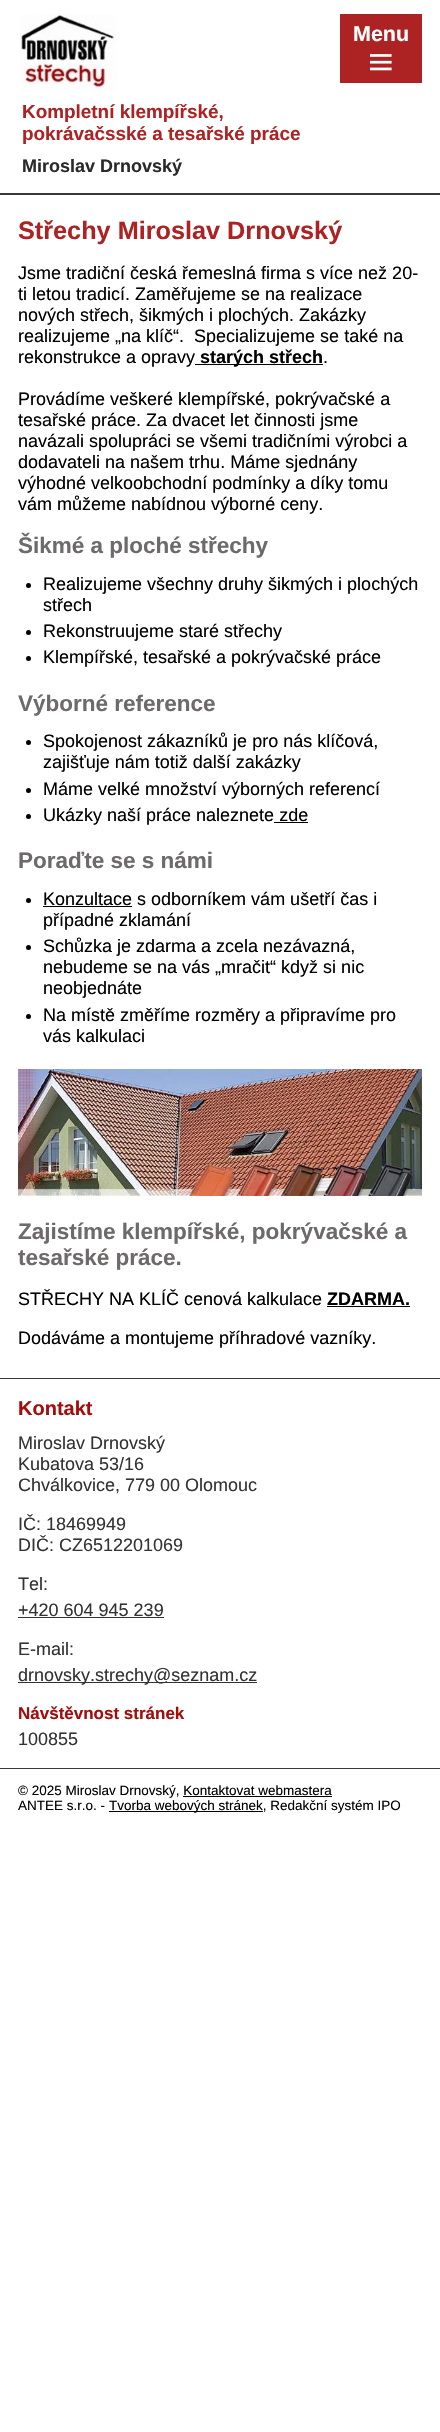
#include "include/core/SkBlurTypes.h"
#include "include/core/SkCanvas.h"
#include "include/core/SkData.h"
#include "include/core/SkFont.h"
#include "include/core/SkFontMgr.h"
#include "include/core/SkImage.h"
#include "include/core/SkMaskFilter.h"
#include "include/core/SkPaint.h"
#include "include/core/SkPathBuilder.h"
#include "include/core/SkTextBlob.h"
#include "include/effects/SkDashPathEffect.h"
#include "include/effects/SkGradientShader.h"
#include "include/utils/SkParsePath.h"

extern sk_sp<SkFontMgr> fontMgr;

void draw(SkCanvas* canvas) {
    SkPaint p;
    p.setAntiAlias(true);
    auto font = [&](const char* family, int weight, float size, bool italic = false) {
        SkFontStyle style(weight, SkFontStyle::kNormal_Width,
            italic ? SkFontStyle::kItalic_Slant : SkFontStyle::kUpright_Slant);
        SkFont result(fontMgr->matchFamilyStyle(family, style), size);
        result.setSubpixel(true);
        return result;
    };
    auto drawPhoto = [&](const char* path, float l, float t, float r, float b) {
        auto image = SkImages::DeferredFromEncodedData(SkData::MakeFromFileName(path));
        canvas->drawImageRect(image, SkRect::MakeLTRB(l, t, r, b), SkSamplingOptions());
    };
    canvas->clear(0xFFFFFFFF);
    p.setColor(0xFFAD2222);
    canvas->drawRect(SkRect::MakeLTRB(340, 14, 422, 83), p);
    auto font1 = font("Liberation Sans", 700, 21.5f);
    p.setColor(0xFFFFFFFF);
    canvas->drawString("Menu", 353, 41, font1, p);
    drawPhoto("media/1.png", 370, 54, 392, 71);
    p.setColor(0xFF383838);
    canvas->drawRect(SkRect::MakeLTRB(0, 193, 440, 195), p);
    drawPhoto("media/2.png", 20, 14, 117, 93);
    auto font2 = font("Liberation Sans", 700, 18.9f);
    p.setColor(0xFFAD2222);
    canvas->drawString("Kompletní klempířské,", 22, 118, font2, p);
    canvas->drawString("pokrávačsské a tesařské práce", 22, 140, font2, p);
    auto font3 = font("Liberation Sans", 700, 18);
    p.setColor(0xFF2B2A2A);
    canvas->drawString("Miroslav Drnovský", 22, 172, font3, p);
    auto font4 = font("Liberation Sans", 700, 25.25f);
    p.setColor(0xFFAD2222);
    canvas->drawString("Střechy Miroslav Drnovský", 18, 239, font4, p);
    auto font5 = font("Liberation Sans", 400, 18);
    p.setColor(0xFF000000);
    {
        const struct { const char* s; float x, y; } items[] = {
            {"Jsme tradiční česká řemeslná firma s více než 20-", 18, 279},
            {"ti letou tradicí. Zaměřujeme se na realizace", 18, 300},
            {"nových střech, šikmých i plochých. Zakázky", 18, 321},
            {"realizujeme „na klíč“.  Specializujeme se také na", 18, 342},
            {"rekonstrukce a opravy", 18, 363},
        };
        for (auto [s, x, y] : items) {
            canvas->drawString(s, x, y, font5, p);
        }
    }
    canvas->drawRect(SkRect::MakeLTRB(195, 364, 323, 365), p);
    canvas->drawString("starých střech", 200, 363, font3, p);
    {
        const struct { const char* s; float x, y; } items[] = {
            {".", 323, 363},
            {"Provádíme veškeré klempířské, pokrývačské a", 18, 405},
            {"tesařské práce. Za dvacet let činnosti jsme", 18, 426},
            {"navázali spolupráci se všemi tradičními výrobci a", 18, 447},
            {"dodavateli na našem trhu. Máme sjednány", 18, 468},
            {"výhodné velkoobchodní podmínky a díky tomu", 18, 489},
            {"vám můžeme nabídnou výborné ceny.", 18, 510},
        };
        for (auto [s, x, y] : items) {
            canvas->drawString(s, x, y, font5, p);
        }
    }
    auto font6 = font("Liberation Sans", 700, 22.5f);
    p.setColor(0xFF6E6A6A);
    canvas->drawString("Šikmé a ploché střechy", 18, 553, font6, p);
    p.setColor(0xFF000000);
    canvas->drawCircle(28.5f, 585.5f, 2.5f, p);
    canvas->drawString("Realizujeme všechny druhy šikmých i plochých", 43, 590, font5, p);
    canvas->drawString("střech", 43, 611, font5, p);
    canvas->drawCircle(28.5f, 632.5f, 2.5f, p);
    canvas->drawString("Rekonstruujeme staré střechy", 43, 637, font5, p);
    canvas->drawCircle(28.5f, 658.5f, 2.5f, p);
    canvas->drawString("Klempířské, tesařské a pokrývačské práce", 43, 663, font5, p);
    p.setColor(0xFF6E6A6A);
    canvas->drawString("Výborné reference", 18, 711, font6, p);
    p.setColor(0xFF000000);
    canvas->drawCircle(28.5f, 742.5f, 2.5f, p);
    canvas->drawString("Spokojenost zákazníků je pro nás klíčová,", 43, 747, font5, p);
    canvas->drawString("zajišťuje nám totiž další zakázky", 43, 768, font5, p);
    canvas->drawCircle(28.5f, 790.5f, 2.5f, p);
    canvas->drawString("Máme velké množství výborných referencí", 43, 795, font5, p);
    canvas->drawCircle(28.5f, 816.5f, 2.5f, p);
    canvas->drawString("Ukázky naší práce naleznete zde", 43, 821, font5, p);
    canvas->drawRect(SkRect::MakeLTRB(274, 822, 308, 823), p);
    p.setColor(0xFF6E6A6A);
    canvas->drawString("Poraďte se s námi", 18, 868, font6, p);
    p.setColor(0xFF000000);
    canvas->drawCircle(28.5f, 900.5f, 2.5f, p);
    canvas->drawString("Konzultace s odborníkem vám ušetří čas i", 43, 905, font5, p);
    canvas->drawRect(SkRect::MakeLTRB(43, 906, 132, 907), p);
    canvas->drawString("případné zklamání", 43, 926, font5, p);
    canvas->drawCircle(28.5f, 947.5f, 2.5f, p);
    {
        const struct { const char* s; float x, y; } items[] = {
            {"Schůzka je zdarma a zcela nezávazná,", 43, 952},
            {"nebudeme se na vás „mračit“ když si nic", 43, 973},
            {"neobjednáte", 43, 994},
        };
        for (auto [s, x, y] : items) {
            canvas->drawString(s, x, y, font5, p);
        }
    }
    canvas->drawCircle(28.5f, 1016.5f, 2.5f, p);
    canvas->drawString("Na místě změříme rozměry a připravíme pro", 43, 1021, font5, p);
    canvas->drawString("vás kalkulaci", 43, 1042, font5, p);
    drawPhoto("media/3.png", 18, 1069, 422, 1196);
    p.setColor(0xFF6E6A6A);
    canvas->drawString("Zajistíme klempířské, pokrývačské a", 18, 1239, font6, p);
    canvas->drawString("tesařské práce.", 18, 1265, font6, p);
    p.setColor(0xFF000000);
    canvas->drawString("STŘECHY NA KLÍČ cenová kalkulace", 18, 1305, font5, p);
    canvas->drawString("ZDARMA.", 327, 1305, font3, p);
    canvas->drawRect(SkRect::MakeLTRB(327, 1306, 410, 1307), p);
    canvas->drawString("Dodáváme a montujeme příhradové vazníky.", 18, 1344, font5, p);
    p.setColor(0xFF383838);
    canvas->drawRect(SkRect::MakeLTRB(0, 1378, 440, 1379), p);
    canvas->drawRect(SkRect::MakeLTRB(0, 1768, 440, 1769), p);
    auto font7 = font("Liberation Sans", 700, 20);
    p.setColor(0xFFA50C0C);
    canvas->drawString("Kontakt", 18, 1415, font7, p);
    p.setColor(0xFF333333);
    {
        const struct { const char* s; float x, y; } items[] = {
            {"Miroslav Drnovský", 18, 1449},
            {"Kubatova 53/16", 18, 1470},
            {"Chválkovice, 779 00 Olomouc", 18, 1491},
            {"IČ: 18469949", 18, 1530},
            {"DIČ: CZ6512201069", 18, 1551},
            {"Tel:", 18, 1590},
            {"+420 604 945 239", 18, 1616},
        };
        for (auto [s, x, y] : items) {
            canvas->drawString(s, x, y, font5, p);
        }
    }
    canvas->drawRect(SkRect::MakeLTRB(18, 1617, 164, 1618), p);
    canvas->drawString("E-mail:", 18, 1655, font5, p);
    canvas->drawRect(SkRect::MakeLTRB(18, 1682, 257, 1683), p);
    canvas->drawString("drnovsky.strechy@seznam.cz", 18, 1681, font5, p);
    auto font8 = font("Liberation Sans", 700, 17);
    p.setColor(0xFFA50C0C);
    canvas->drawString("Návštěvnost stránek", 18, 1719, font8, p);
    p.setColor(0xFF333333);
    canvas->drawString("100855", 18, 1745, font5, p);
    auto font9 = font("Liberation Sans", 400, 13.5f);
    p.setColor(0xFF000000);
    canvas->drawString("© 2025 Miroslav Drnovský, Kontaktovat webmastera", 18, 1795, font9, p);
    canvas->drawRect(SkRect::MakeLTRB(183, 1796, 332, 1797), p);
    canvas->drawString("ANTEE s.r.o. -", 18, 1810, font9, p);
    canvas->drawRect(SkRect::MakeLTRB(109, 1811, 263, 1812), p);
    canvas->drawString("Tvorba webových stránek, Redakční systém IPO", 109, 1810, font9, p);
}
